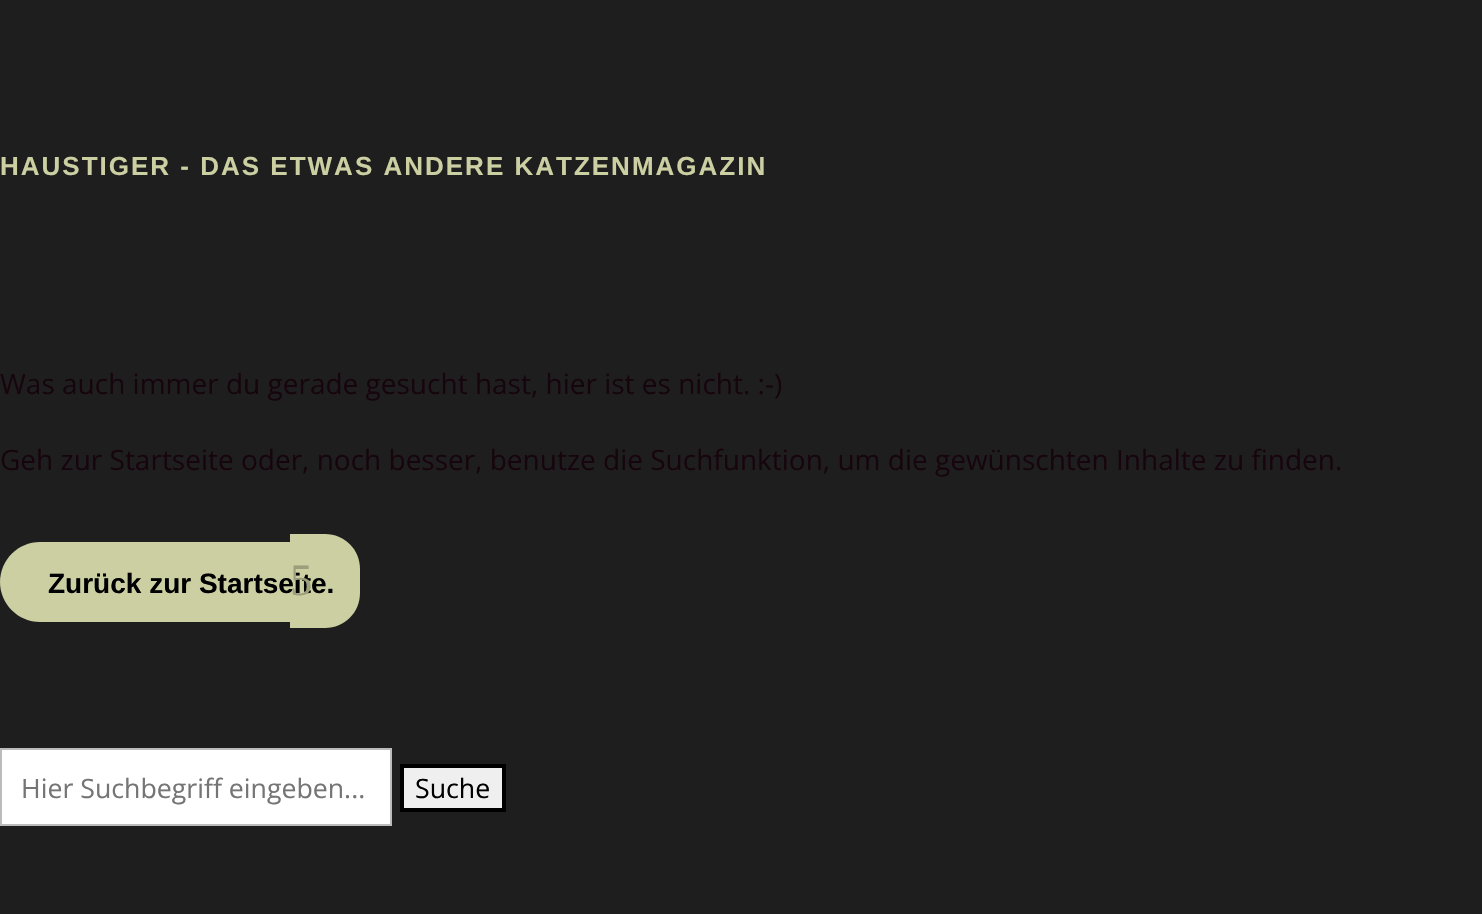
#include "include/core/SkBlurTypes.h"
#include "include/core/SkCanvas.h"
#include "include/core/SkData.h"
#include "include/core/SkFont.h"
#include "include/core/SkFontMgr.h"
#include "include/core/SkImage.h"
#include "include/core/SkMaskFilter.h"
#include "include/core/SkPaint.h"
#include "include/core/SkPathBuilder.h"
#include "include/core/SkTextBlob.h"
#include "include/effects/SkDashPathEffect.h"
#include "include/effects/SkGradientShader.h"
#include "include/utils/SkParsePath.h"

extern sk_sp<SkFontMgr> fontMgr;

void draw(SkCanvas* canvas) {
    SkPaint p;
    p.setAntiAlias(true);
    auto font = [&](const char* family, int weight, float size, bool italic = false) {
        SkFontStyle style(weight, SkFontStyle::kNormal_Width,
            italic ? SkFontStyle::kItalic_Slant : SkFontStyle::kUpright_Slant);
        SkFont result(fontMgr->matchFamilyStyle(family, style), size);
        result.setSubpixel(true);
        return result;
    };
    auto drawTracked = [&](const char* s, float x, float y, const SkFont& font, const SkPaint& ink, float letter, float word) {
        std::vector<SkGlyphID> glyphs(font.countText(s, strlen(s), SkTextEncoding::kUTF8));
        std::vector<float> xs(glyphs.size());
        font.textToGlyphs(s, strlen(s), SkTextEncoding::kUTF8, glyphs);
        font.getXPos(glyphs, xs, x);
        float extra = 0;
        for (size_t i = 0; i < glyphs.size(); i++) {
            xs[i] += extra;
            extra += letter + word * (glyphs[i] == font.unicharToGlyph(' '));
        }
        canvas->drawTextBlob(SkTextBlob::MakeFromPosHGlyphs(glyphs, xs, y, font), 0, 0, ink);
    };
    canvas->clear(0xFF1E1E1E);
    auto font1 = font("Liberation Sans", 700, 26);
    p.setColor(0xFFCCCFA2);
    drawTracked("HAUSTIGER - DAS ETWAS ANDERE KATZENMAGAZIN", 0, 175, font1, p, 2, 0);
    auto font2 = font("Open Sans", 400, 28);
    p.setColor(0xFF16050D);
    canvas->drawString("Was auch immer du gerade gesucht hast, hier ist es nicht. :-)", 0, 394, font2, p);
    canvas->drawString("Geh zur Startseite oder, noch besser, benutze die Suchfunktion, um die gewünschten Inhalte zu finden.", 0, 470, font2, p);
    p.setColor(0xFFCCCFA2);
    canvas->drawPath(SkPathBuilder().moveTo(40, 542).lineTo(334, 542).lineTo(334, 622).lineTo(40, 622).cubicTo(18, 622, 0, 604, 0, 582).cubicTo(0, 560, 18, 542, 40, 542).close().detach(), p);
    canvas->drawPath(SkPathBuilder().moveTo(290, 534).lineTo(325, 534).cubicTo(344.5f, 534, 360, 549.5f, 360, 569).lineTo(360, 593).cubicTo(360, 612.5f, 344.5f, 628, 325, 628).lineTo(290, 628).close().detach(), p);
    auto font3 = font("Liberation Sans", 700, 28);
    p.setColor(0xFF000000);
    canvas->drawString("Zurück zur Startseite.", 48, 593, font3, p);
    auto font4 = font("Liberation Serif", 400, 45);
    p.setColor(0xFF9C9E7C);
    canvas->drawString("5", 290, 595, font4, p);
    p.setColor(0xFFFFFFFF);
    canvas->drawRect(SkRect::MakeLTRB(1, 749, 391, 825), p);
    p.setStyle(SkPaint::kStroke_Style);
    p.setStrokeWidth(2);
    p.setColor(0xFFBBBBBB);
    canvas->drawRect(SkRect::MakeLTRB(1, 749, 391, 825), p);
    auto font5 = font("Open Sans", 400, 26.7f);
    p.setStyle(SkPaint::kFill_Style);
    p.setColor(0xFF757575);
    canvas->drawString("Hier Suchbegriff eingeben...", 21, 798, font5, p);
    p.setColor(0xFFEFEFEF);
    canvas->drawRect(SkRect::MakeLTRB(402, 766, 504, 810), p);
    p.setStyle(SkPaint::kStroke_Style);
    p.setStrokeWidth(4);
    p.setColor(0xFF000000);
    canvas->drawRect(SkRect::MakeLTRB(402, 766, 504, 810), p);
    p.setStyle(SkPaint::kFill_Style);
    canvas->drawString("Suche", 415, 798, font5, p);
}
